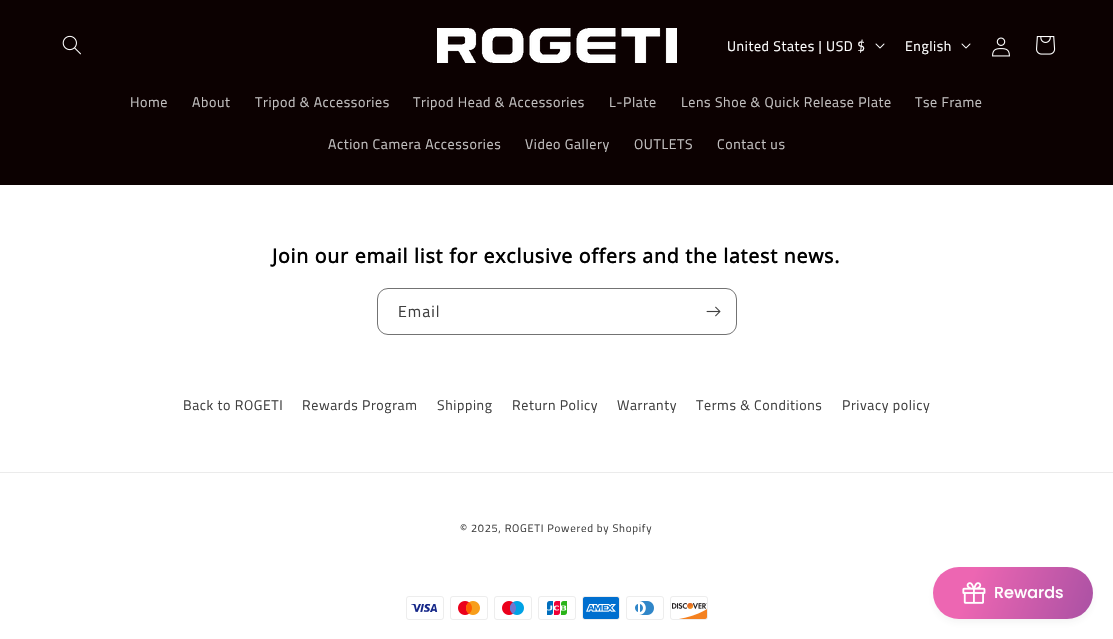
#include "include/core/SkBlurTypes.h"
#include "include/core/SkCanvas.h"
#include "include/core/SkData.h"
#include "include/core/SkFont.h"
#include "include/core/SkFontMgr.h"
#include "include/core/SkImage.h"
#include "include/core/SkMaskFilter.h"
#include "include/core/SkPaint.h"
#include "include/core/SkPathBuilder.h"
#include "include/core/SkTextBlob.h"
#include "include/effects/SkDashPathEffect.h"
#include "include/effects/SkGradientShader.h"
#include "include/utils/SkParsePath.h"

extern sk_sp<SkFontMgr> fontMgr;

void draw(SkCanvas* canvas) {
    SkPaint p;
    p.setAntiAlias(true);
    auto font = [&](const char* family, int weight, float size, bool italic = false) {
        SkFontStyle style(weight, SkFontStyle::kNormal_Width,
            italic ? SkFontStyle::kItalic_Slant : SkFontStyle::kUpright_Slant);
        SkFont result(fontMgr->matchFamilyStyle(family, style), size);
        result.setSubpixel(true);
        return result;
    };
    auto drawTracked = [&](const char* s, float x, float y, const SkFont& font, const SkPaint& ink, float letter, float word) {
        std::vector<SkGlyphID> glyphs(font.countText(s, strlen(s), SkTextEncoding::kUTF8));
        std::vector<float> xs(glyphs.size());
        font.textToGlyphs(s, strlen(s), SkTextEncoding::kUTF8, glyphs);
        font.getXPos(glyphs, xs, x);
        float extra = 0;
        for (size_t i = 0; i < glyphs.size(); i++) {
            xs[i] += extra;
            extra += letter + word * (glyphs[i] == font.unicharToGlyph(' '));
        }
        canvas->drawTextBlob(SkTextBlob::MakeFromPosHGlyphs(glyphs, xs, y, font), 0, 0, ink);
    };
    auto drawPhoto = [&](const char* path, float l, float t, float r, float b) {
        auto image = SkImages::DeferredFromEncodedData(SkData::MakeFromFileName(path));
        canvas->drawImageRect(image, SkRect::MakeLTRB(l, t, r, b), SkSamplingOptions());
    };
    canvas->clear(0xFFFFFFFF);
    {
        const SkColor colors[] = {0xFF0C0101, 0xFF5E3653};
        const float stops[] = {1, 1};
        const SkPoint ends[] = {{944, 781}, {169, -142}};
        p.setShader(SkGradientShader::MakeLinear(ends, colors, stops, 2, SkTileMode::kClamp));
        p.setAlpha(255);
    }
    canvas->drawRect(SkRect::MakeLTRB(0, 0, 1113, 185), p);
    drawPhoto("media/1.png", 62, 35, 81, 55);
    drawPhoto("media/2.png", 437, 28, 677, 63);
    auto font1 = font("Titillium Web", 400, 14);
    p.setShader(nullptr);
    p.setColor(0xFFFFFFFF);
    drawTracked("United States | USD $", 727, 51, font1, p, 0.6f, 0);
    drawPhoto("media/3.png", 875, 43, 885, 49);
    drawTracked("English", 905, 51, font1, p, 0.6f, 0);
    drawPhoto("media/3.png", 961, 43, 971, 49);
    drawPhoto("media/4.png", 992, 37, 1010, 57);
    drawPhoto("media/5.png", 1036, 36, 1056, 55);
    p.setColor(0xFFC2C0C0);
    {
        const struct { const char* s; float x, y; } items[] = {
            {"Home", 130, 107},
            {"About", 192, 107},
            {"Tripod & Accessories", 255, 107},
            {"Tripod Head & Accessories", 413, 107},
            {"L-Plate", 609, 107},
            {"Lens Shoe & Quick Release Plate", 681, 107},
            {"Tse Frame", 915, 107},
            {"Action Camera Accessories", 328, 149},
            {"Video Gallery", 525, 149},
            {"OUTLETS", 634, 149},
            {"Contact us", 717, 149},
        };
        for (auto [s, x, y] : items) {
            drawTracked(s, x, y, font1, p, 0.6f, 0);
        }
    }
    auto font2 = font("Open Sans", 700, 19.5f);
    p.setColor(0xFF000000);
    drawTracked("Join our email list for exclusive offers and the latest news.", 272, 263, font2, p, 0.78f, 0);
    p.setStyle(SkPaint::kStroke_Style);
    p.setStrokeWidth(1);
    p.setColor(0xFF737373);
    canvas->drawRoundRect(SkRect::MakeLTRB(377.5f, 288.5f, 736.5f, 334.5f), 10.5f, 10.5f, p);
    auto font3 = font("Titillium Web", 400, 16);
    p.setStyle(SkPaint::kFill_Style);
    p.setColor(0xFF404040);
    drawTracked("Email", 398, 317, font3, p, 1, 0);
    drawPhoto("media/6.png", 706, 306, 721, 317);
    {
        const struct { const char* s; float x, y; } items[] = {
            {"Back to ROGETI", 183, 410},
            {"Rewards Program", 302, 410},
            {"Shipping", 437, 410},
            {"Return Policy", 512, 410},
            {"Warranty", 617, 410},
            {"Terms & Conditions", 696, 410},
            {"Privacy policy", 842, 410},
        };
        for (auto [s, x, y] : items) {
            drawTracked(s, x, y, font1, p, 0.6f, 0);
        }
    }
    p.setColor(0xFFEBEBEB);
    canvas->drawRect(SkRect::MakeLTRB(0, 472, 1113, 473), p);
    auto font4 = font("Titillium Web", 400, 11);
    p.setColor(0xFF404040);
    drawTracked("© 2025, ROGETI Powered by Shopify", 460, 532, font4, p, 0.7f, 0);
    drawPhoto("media/7.png", 406, 596, 444, 620);
    drawPhoto("media/8.png", 450, 596, 488, 620);
    drawPhoto("media/9.png", 494, 596, 532, 620);
    drawPhoto("media/10.png", 538, 596, 576, 620);
    drawPhoto("media/11.png", 582, 596, 620, 620);
    drawPhoto("media/12.png", 626, 596, 664, 620);
    drawPhoto("media/13.png", 670, 596, 708, 620);
    p.setColor(0x14444444);
    p.setMaskFilter(SkMaskFilter::MakeBlur(kNormal_SkBlurStyle, 4));
    canvas->drawRoundRect(SkRect::MakeLTRB(935, 573, 1091, 621), 24, 24, p);
    p.setMaskFilter(nullptr);
    {
        const SkColor colors[] = {0xFFED66B2, 0xFF86469C};
        const float stops[] = {0.17f, 1};
        const SkPoint ends[] = {{934, 565}, {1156, 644}};
        p.setShader(SkGradientShader::MakeLinear(ends, colors, stops, 2, SkTileMode::kClamp));
        p.setAlpha(255);
    }
    canvas->drawRoundRect(SkRect::MakeLTRB(933, 567, 1093, 619), 26, 26, p);
    drawPhoto("media/14.png", 962, 582, 986, 604);
    auto font5 = font("Poppins", 500, 16);
    p.setShader(nullptr);
    p.setColor(0xFFFFFFFF);
    canvas->drawString("Rewards", 994, 598, font5, p);
}
